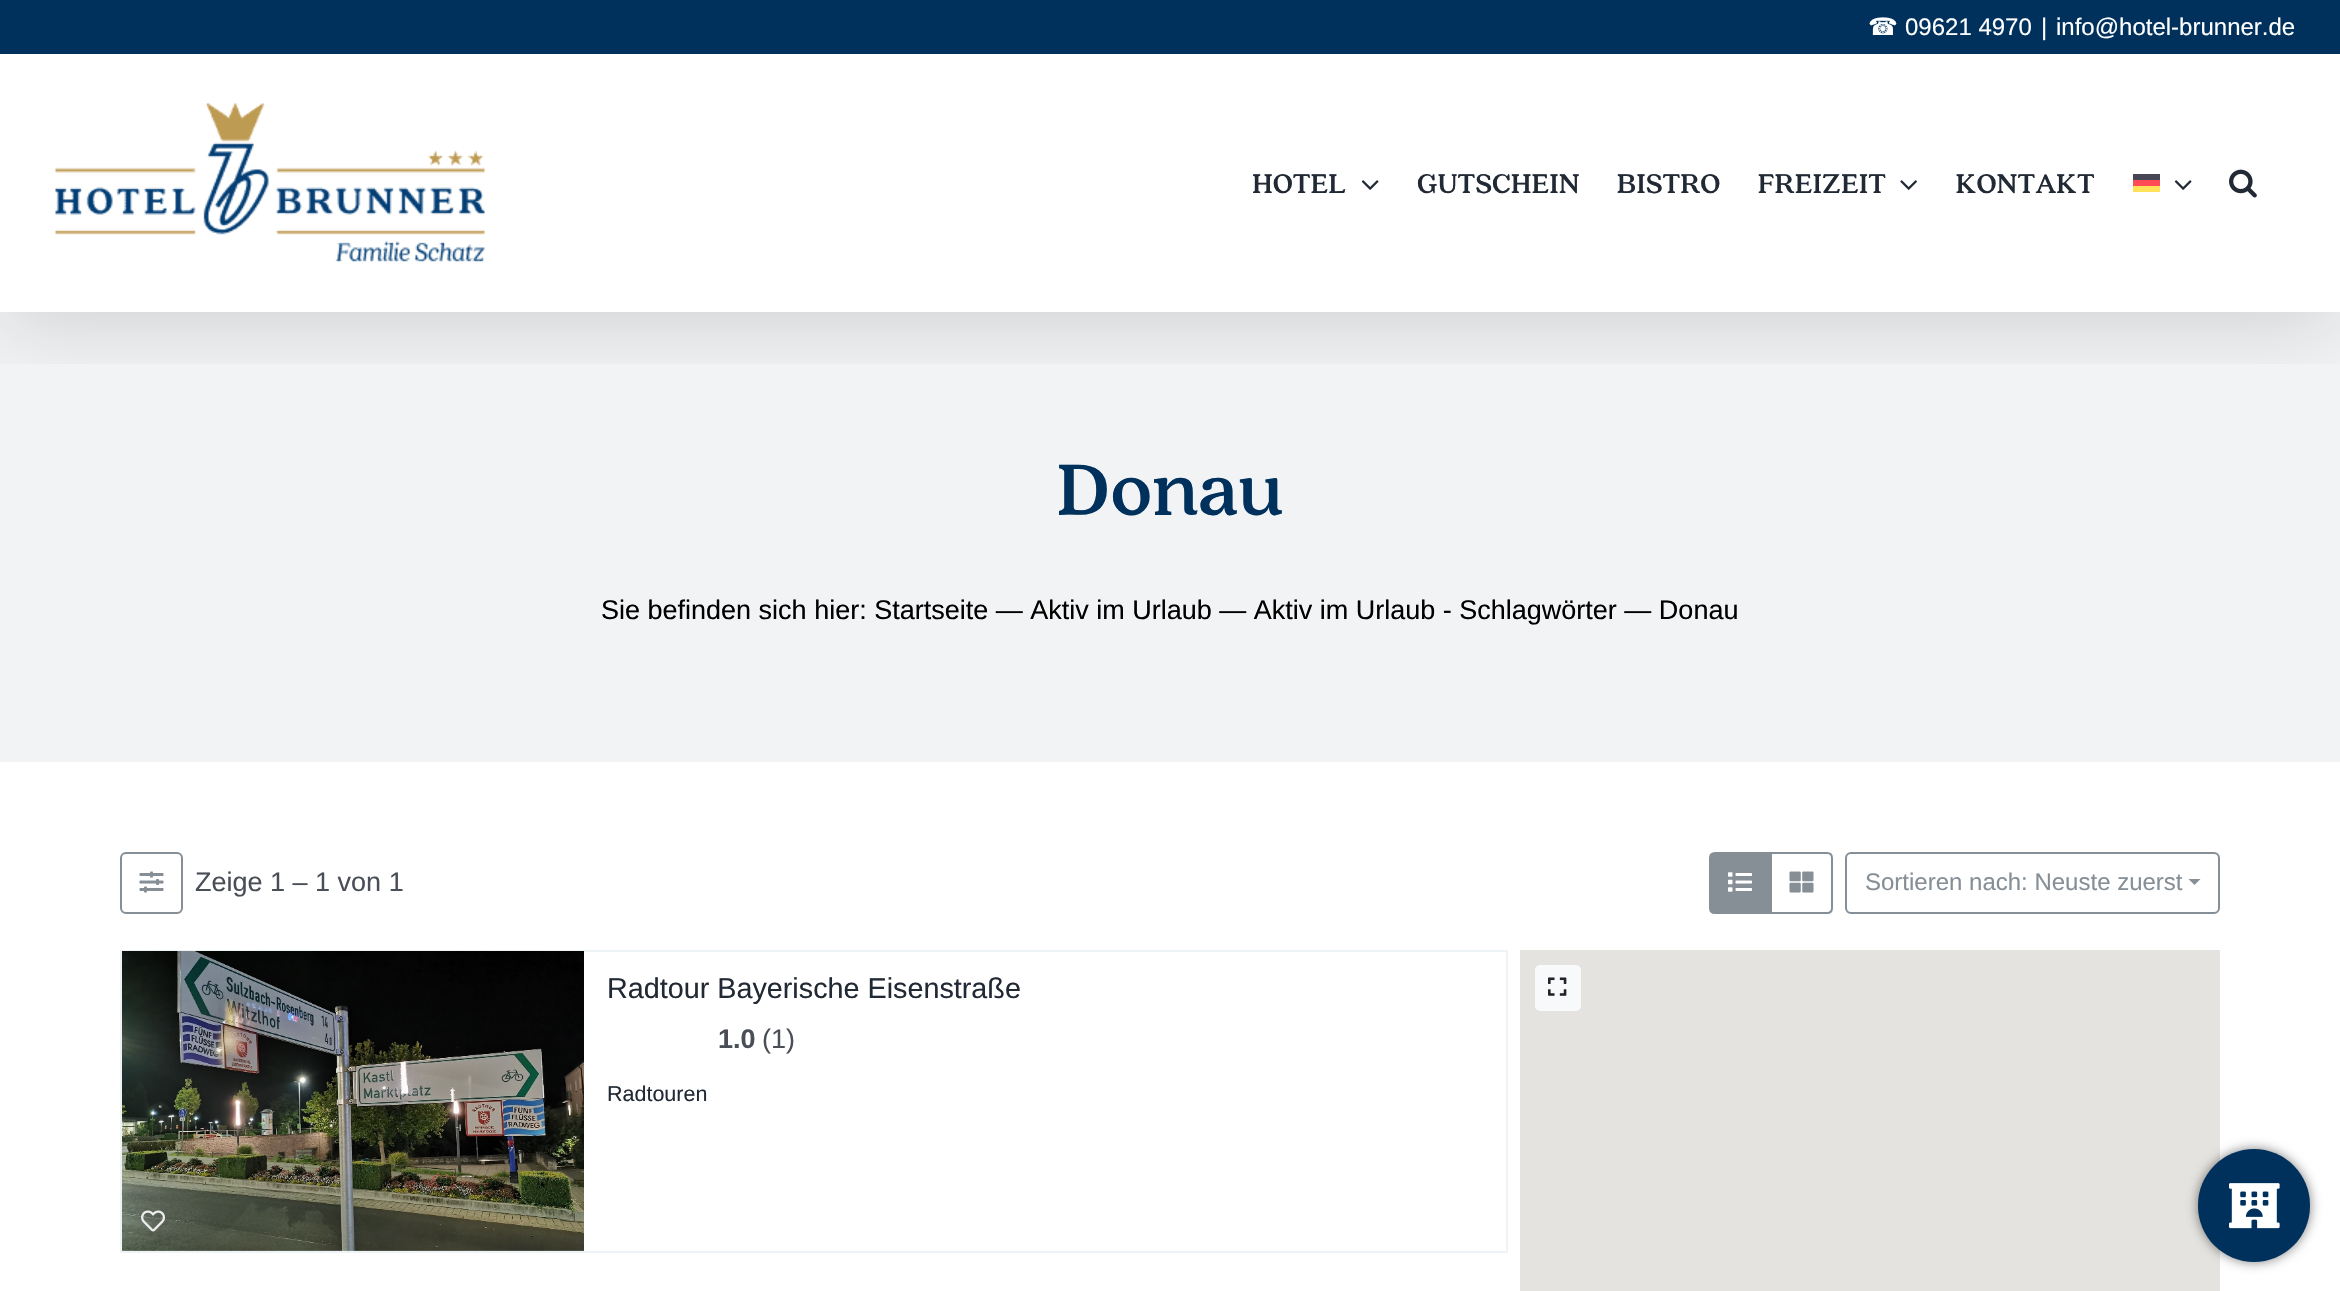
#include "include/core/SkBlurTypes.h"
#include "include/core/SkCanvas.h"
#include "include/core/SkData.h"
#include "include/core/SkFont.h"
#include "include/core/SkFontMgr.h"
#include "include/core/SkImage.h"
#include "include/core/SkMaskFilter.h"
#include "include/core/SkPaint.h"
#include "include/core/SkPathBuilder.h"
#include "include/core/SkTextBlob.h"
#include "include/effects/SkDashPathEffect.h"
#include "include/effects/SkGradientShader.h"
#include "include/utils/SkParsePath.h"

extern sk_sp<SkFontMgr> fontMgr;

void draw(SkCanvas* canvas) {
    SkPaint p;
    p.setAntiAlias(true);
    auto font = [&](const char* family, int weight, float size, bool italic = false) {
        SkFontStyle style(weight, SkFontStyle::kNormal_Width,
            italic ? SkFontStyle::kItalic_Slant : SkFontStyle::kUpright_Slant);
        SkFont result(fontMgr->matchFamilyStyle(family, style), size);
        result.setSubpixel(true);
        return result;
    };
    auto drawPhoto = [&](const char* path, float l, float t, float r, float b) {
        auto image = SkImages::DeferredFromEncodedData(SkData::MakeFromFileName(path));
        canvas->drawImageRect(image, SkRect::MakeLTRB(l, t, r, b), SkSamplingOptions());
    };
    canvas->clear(0xFFFFFFFF);
    p.setColor(0xFFF2F3F5);
    canvas->drawRect(SkRect::MakeLTRB(0, 312, 2340, 762), p);
    canvas->save();
    canvas->clipRect(SkRect::MakeLTRB(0, 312, 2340, 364));
    p.setColor(0x24000000);
    p.setMaskFilter(SkMaskFilter::MakeBlur(kNormal_SkBlurStyle, 37.5f));
    canvas->drawRect(SkRect::MakeLTRB(3, 18, 2337, 324), p);
    p.setMaskFilter(nullptr);
    canvas->restore();
    p.setColor(0xFF00315D);
    canvas->drawRect(SkRect::MakeLTRB(0, 0, 2340, 54), p);
    auto font1 = font("DejaVu Sans", 400, 24);
    p.setColor(0xFFFFFFFF);
    canvas->drawString("☎", 1868, 35, font1, p);
    auto font2 = font("Liberation Sans", 400, 24);
    {
        const struct { const char* s; float x, y; } items[] = {
            {"09621 4970", 1905, 35},
            {"|", 2041, 35},
            {"info@hotel-brunner.de", 2056, 35},
        };
        for (auto [s, x, y] : items) {
            canvas->drawString(s, x, y, font2, p);
        }
    }
    drawPhoto("media/1.png", 55, 103, 485, 262);
    auto font3 = font("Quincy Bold", 700, 30);
    p.setColor(0xFF212934);
    canvas->drawString("HOTEL", 1252, 193, font3, p);
    drawPhoto("media/2.png", 1361, 180, 1379, 190);
    {
        const struct { const char* s; float x, y; } items[] = {
            {"GUTSCHEIN", 1417, 193},
            {"BISTRO", 1617, 193},
            {"FREIZEIT", 1758, 193},
        };
        for (auto [s, x, y] : items) {
            canvas->drawString(s, x, y, font3, p);
        }
    }
    drawPhoto("media/3.png", 1900, 180, 1917, 190);
    canvas->drawString("KONTAKT", 1956, 193, font3, p);
    {
        const struct { float l, t, r, b; SkColor color; } items[] = {
            {2133, 180, 2160, 186, 0xFFFF4B55},
            {2133, 186, 2160, 192, 0xFFFFE15A},
            {2133, 174, 2160, 180, 0xFF464655},
        };
        for (auto [l, t, r, b, color] : items) {
            p.setColor(color);
            canvas->drawRect(SkRect::MakeLTRB(l, t, r, b), p);
        }
    }
    drawPhoto("media/2.png", 2174, 180, 2192, 190);
    drawPhoto("media/4.png", 2229, 169, 2257, 198);
    auto font4 = font("Quincy Bold", 700, 81);
    p.setColor(0xFF00315D);
    canvas->drawString("Donau", 1057, 515, font4, p);
    auto font5 = font("Liberation Sans", 400, 27);
    p.setColor(0xFF000000);
    canvas->drawString("Sie befinden sich hier: Startseite — Aktiv im Urlaub — Aktiv im Urlaub - Schlagwörter — Donau", 601, 619, font5, p);
    p.setStyle(SkPaint::kStroke_Style);
    p.setStrokeWidth(2);
    p.setColor(0xFF868E96);
    canvas->drawRoundRect(SkRect::MakeLTRB(121, 853, 182, 913), 5, 5, p);
    drawPhoto("media/5.png", 139, 871, 164, 893);
    p.setStyle(SkPaint::kFill_Style);
    p.setColor(0xFF4A4E57);
    canvas->drawString("Zeige 1 – 1 von 1", 195, 891, font5, p);
    p.setStyle(SkPaint::kStroke_Style);
    p.setColor(0xFF868E96);
    canvas->drawPath(SkPathBuilder().moveTo(1771, 853).lineTo(1827, 853).cubicTo(1830, 853, 1832, 855, 1832, 858).lineTo(1832, 908).cubicTo(1832, 911, 1830, 913, 1827, 913).lineTo(1771, 913).close().detach(), p);
    p.setStyle(SkPaint::kFill_Style);
    canvas->drawPath(SkPathBuilder().moveTo(1715, 853).lineTo(1771, 853).lineTo(1771, 913).lineTo(1715, 913).cubicTo(1712, 913, 1710, 911, 1710, 908).lineTo(1710, 858).cubicTo(1710, 855, 1712, 853, 1715, 853).close().detach(), p);
    p.setStyle(SkPaint::kStroke_Style);
    canvas->drawPath(SkPathBuilder().moveTo(1715, 853).lineTo(1771, 853).lineTo(1771, 913).lineTo(1715, 913).cubicTo(1712, 913, 1710, 911, 1710, 908).lineTo(1710, 858).cubicTo(1710, 855, 1712, 853, 1715, 853).close().detach(), p);
    drawPhoto("media/6.png", 1728, 872, 1752, 892);
    drawPhoto("media/7.png", 1789, 871, 1814, 893);
    canvas->drawRoundRect(SkRect::MakeLTRB(1846, 853, 2219, 913), 5, 5, p);
    p.setStyle(SkPaint::kFill_Style);
    canvas->drawString("Sortieren nach: Neuste zuerst", 1865, 890, font2, p);
    canvas->drawPath(SkPathBuilder().moveTo(2188.5f, 879).lineTo(2200.5f, 879).lineTo(2194.5f, 885).close().detach(), p);
    p.setStyle(SkPaint::kStroke_Style);
    p.setColor(0xFFEEF3F6);
    canvas->drawRect(SkRect::MakeLTRB(121, 951, 1507, 1252), p);
    drawPhoto("media/8.png", 122, 951, 584, 1251);
    drawPhoto("media/9.png", 141, 1210, 165, 1232);
    auto font6 = font("Liberation Sans", 400, 28.75f);
    p.setStyle(SkPaint::kFill_Style);
    p.setColor(0xFF212934);
    canvas->drawString("Radtour Bayerische Eisenstraße", 607, 998, font6, p);
    auto font7 = font("Liberation Sans", 700, 27);
    p.setColor(0xFF4A4E57);
    canvas->drawString("1.0", 718, 1048, font7, p);
    canvas->drawString("(1)", 762, 1048, font5, p);
    auto font8 = font("Liberation Sans", 400, 21.5f);
    p.setColor(0xFF212934);
    canvas->drawString("Radtouren", 607, 1101, font8, p);
    p.setColor(0xFFE5E3DF);
    canvas->drawRect(SkRect::MakeLTRB(1520, 950, 2220, 1291), p);
    p.setColor(0xFFF8F9FA);
    canvas->drawRoundRect(SkRect::MakeLTRB(1536, 966, 1580, 1010), 4, 4, p);
    p.setStyle(SkPaint::kStroke_Style);
    canvas->drawRoundRect(SkRect::MakeLTRB(1536, 966, 1580, 1010), 4, 4, p);
    drawPhoto("media/10.png", 1548, 977, 1567, 996);
    p.setStyle(SkPaint::kFill_Style);
    p.setColor(0x80000000);
    p.setMaskFilter(SkMaskFilter::MakeBlur(kNormal_SkBlurStyle, 6));
    canvas->drawRoundRect(SkRect::MakeLTRB(2198, 1149, 2310, 1262), 56, 56, p);
    p.setMaskFilter(nullptr);
    p.setColor(0xFF00315D);
    canvas->drawRoundRect(SkRect::MakeLTRB(2198, 1149, 2310, 1262), 56, 56, p);
    drawPhoto("media/11.png", 2229, 1183, 2280, 1229);
}
